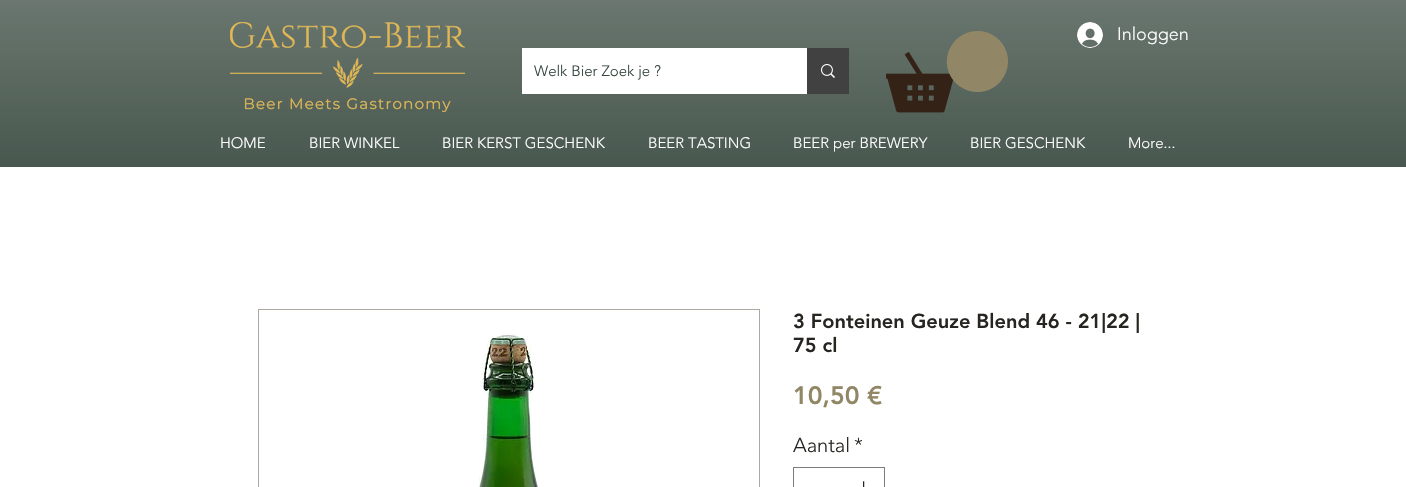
#include "include/core/SkBlurTypes.h"
#include "include/core/SkCanvas.h"
#include "include/core/SkData.h"
#include "include/core/SkFont.h"
#include "include/core/SkFontMgr.h"
#include "include/core/SkImage.h"
#include "include/core/SkMaskFilter.h"
#include "include/core/SkPaint.h"
#include "include/core/SkPathBuilder.h"
#include "include/core/SkTextBlob.h"
#include "include/effects/SkDashPathEffect.h"
#include "include/effects/SkGradientShader.h"
#include "include/utils/SkParsePath.h"

extern sk_sp<SkFontMgr> fontMgr;

void draw(SkCanvas* canvas) {
    SkPaint p;
    p.setAntiAlias(true);
    auto font = [&](const char* family, int weight, float size, bool italic = false) {
        SkFontStyle style(weight, SkFontStyle::kNormal_Width,
            italic ? SkFontStyle::kItalic_Slant : SkFontStyle::kUpright_Slant);
        SkFont result(fontMgr->matchFamilyStyle(family, style), size);
        result.setSubpixel(true);
        return result;
    };
    auto drawPhoto = [&](const char* path, float l, float t, float r, float b) {
        auto image = SkImages::DeferredFromEncodedData(SkData::MakeFromFileName(path));
        canvas->drawImageRect(image, SkRect::MakeLTRB(l, t, r, b), SkSamplingOptions());
    };
    canvas->clear(0xFFFFFFFF);
    p.setColor(0xFF36473D);
    canvas->drawRect(SkRect::MakeLTRB(0, 0, 1406, 167), p);
    drawPhoto("media/1.png", 0, 0, 1406, 167);
    drawPhoto("media/2.png", 230, 22, 465, 112);
    p.setColor(0xFFFFFFFF);
    canvas->drawRect(SkRect::MakeLTRB(522, 48, 807, 94), p);
    auto font1 = font("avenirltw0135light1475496", 300, 15);
    p.setColor(0xFF36473D);
    canvas->drawString("Welk Bier Zoek je ?", 534, 76, font1, p);
    p.setColor(0xFF414141);
    canvas->drawRect(SkRect::MakeLTRB(807, 48, 849, 94), p);
    drawPhoto("media/3.png", 821, 64, 835, 78);
    drawPhoto("media/4.png", 886, 31, 1008, 113);
    drawPhoto("media/5.png", 1077, 22, 1103, 48);
    auto font2 = font("avenirltw0135light1475496", 300, 18);
    p.setColor(0xFFFFFFFF);
    canvas->drawString("Inloggen", 1117, 40, font2, p);
    {
        const struct { const char* s; float x, y; } items[] = {
            {"HOME", 220, 148},
            {"BIER WINKEL", 309, 148},
            {"BIER KERST GESCHENK", 442, 148},
            {"BEER TASTING", 648, 148},
            {"BEER per BREWERY", 793, 148},
            {"BIER GESCHENK", 970, 148},
            {"More...", 1128, 148},
        };
        for (auto [s, x, y] : items) {
            canvas->drawString(s, x, y, font1, p);
        }
    }
    p.setStyle(SkPaint::kStroke_Style);
    p.setStrokeWidth(1);
    p.setColor(0xFFADA9A0);
    canvas->drawRect(SkRect::MakeLTRB(258.5f, 309.5f, 759.5f, 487.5f), p);
    drawPhoto("media/6.png", 478, 334, 539, 487);
    auto font3 = font("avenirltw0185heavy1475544", 900, 20);
    p.setStyle(SkPaint::kFill_Style);
    p.setColor(0xFF272521);
    canvas->drawString("3 Fonteinen Geuze Blend 46 - 21|22 |", 793, 328, font3, p);
    canvas->drawString("75 cl", 793, 352, font3, p);
    auto font4 = font("avenirltw0185heavy1475544", 900, 25);
    p.setColor(0xFF918766);
    canvas->drawString("10,50 €", 793, 404, font4, p);
    auto font5 = font("avenirltw0135light1475496", 300, 20);
    p.setColor(0xFF272521);
    canvas->drawString("Aantal", 793, 452, font5, p);
    canvas->drawString("*", 854, 452, font5, p);
    p.setStyle(SkPaint::kStroke_Style);
    p.setColor(0xFF7D7C7A);
    canvas->drawRect(SkRect::MakeLTRB(793.5f, 467.5f, 884.5f, 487.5f), p);
    drawPhoto("media/7.png", 863, 481, 865, 487);
}
